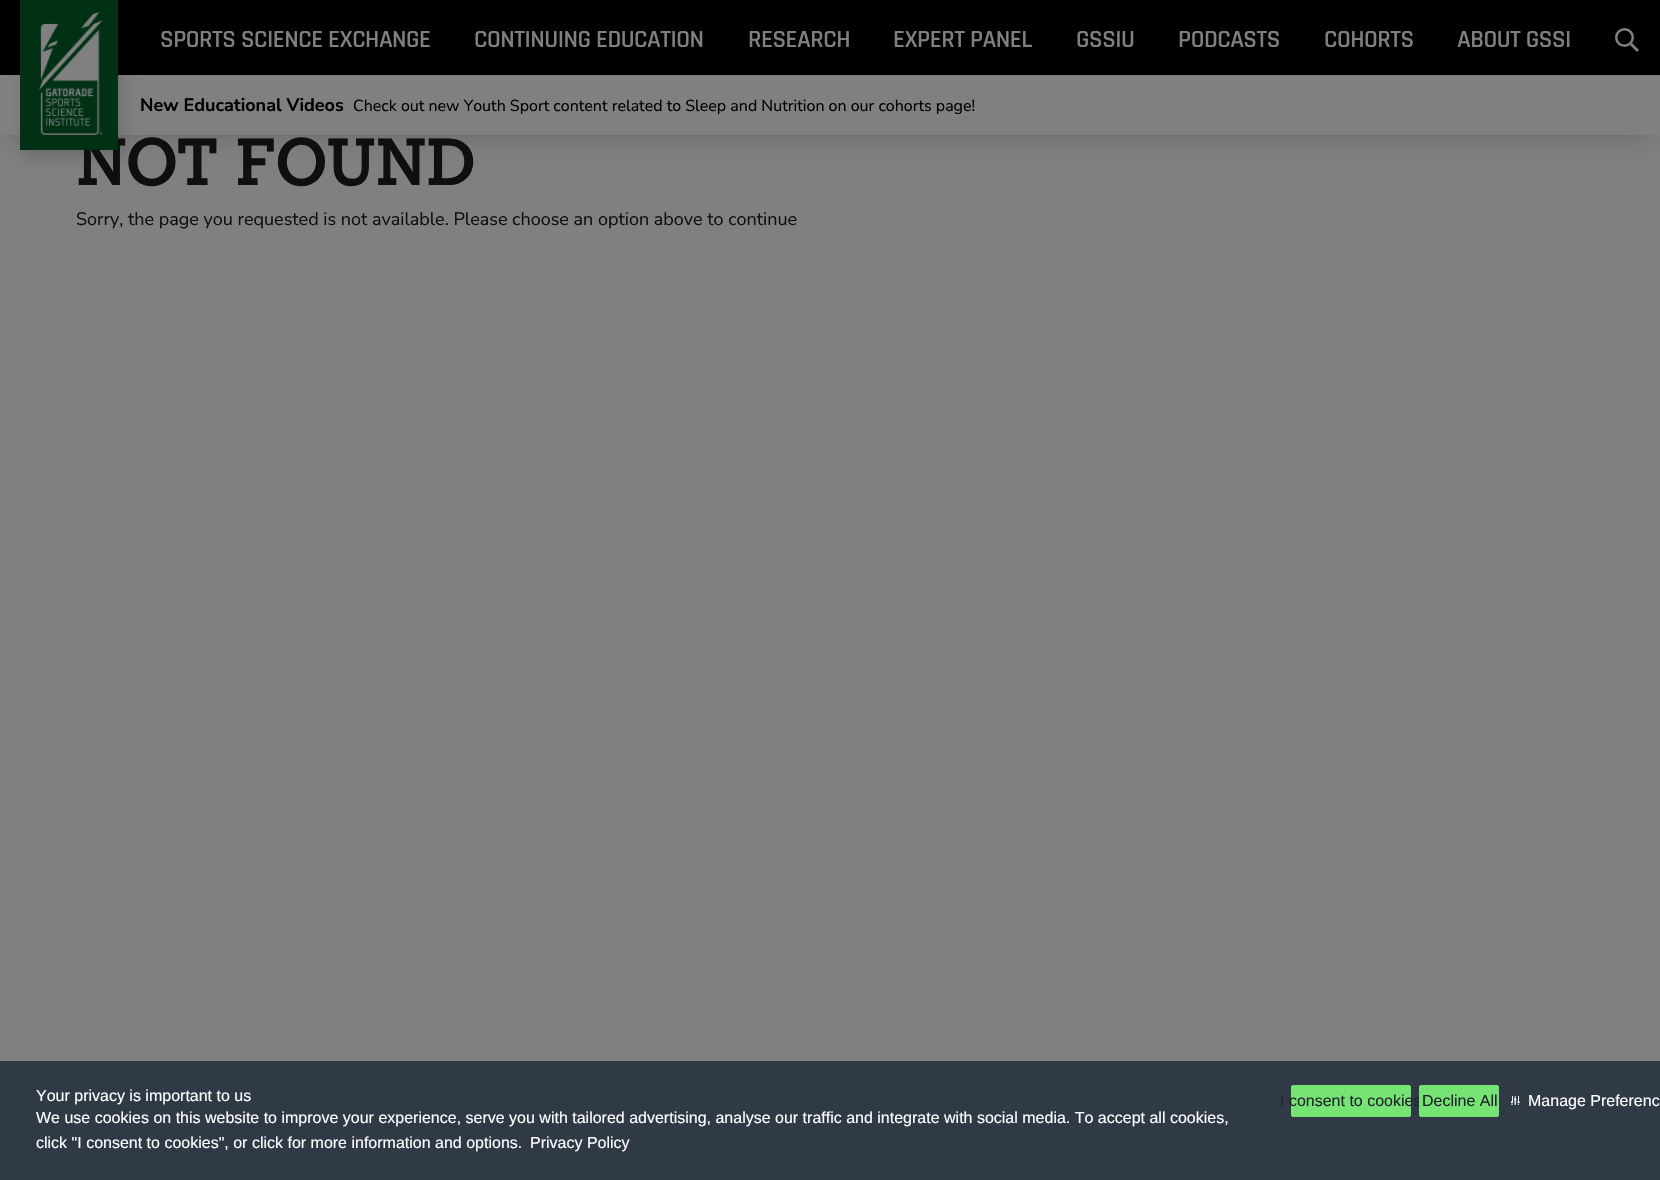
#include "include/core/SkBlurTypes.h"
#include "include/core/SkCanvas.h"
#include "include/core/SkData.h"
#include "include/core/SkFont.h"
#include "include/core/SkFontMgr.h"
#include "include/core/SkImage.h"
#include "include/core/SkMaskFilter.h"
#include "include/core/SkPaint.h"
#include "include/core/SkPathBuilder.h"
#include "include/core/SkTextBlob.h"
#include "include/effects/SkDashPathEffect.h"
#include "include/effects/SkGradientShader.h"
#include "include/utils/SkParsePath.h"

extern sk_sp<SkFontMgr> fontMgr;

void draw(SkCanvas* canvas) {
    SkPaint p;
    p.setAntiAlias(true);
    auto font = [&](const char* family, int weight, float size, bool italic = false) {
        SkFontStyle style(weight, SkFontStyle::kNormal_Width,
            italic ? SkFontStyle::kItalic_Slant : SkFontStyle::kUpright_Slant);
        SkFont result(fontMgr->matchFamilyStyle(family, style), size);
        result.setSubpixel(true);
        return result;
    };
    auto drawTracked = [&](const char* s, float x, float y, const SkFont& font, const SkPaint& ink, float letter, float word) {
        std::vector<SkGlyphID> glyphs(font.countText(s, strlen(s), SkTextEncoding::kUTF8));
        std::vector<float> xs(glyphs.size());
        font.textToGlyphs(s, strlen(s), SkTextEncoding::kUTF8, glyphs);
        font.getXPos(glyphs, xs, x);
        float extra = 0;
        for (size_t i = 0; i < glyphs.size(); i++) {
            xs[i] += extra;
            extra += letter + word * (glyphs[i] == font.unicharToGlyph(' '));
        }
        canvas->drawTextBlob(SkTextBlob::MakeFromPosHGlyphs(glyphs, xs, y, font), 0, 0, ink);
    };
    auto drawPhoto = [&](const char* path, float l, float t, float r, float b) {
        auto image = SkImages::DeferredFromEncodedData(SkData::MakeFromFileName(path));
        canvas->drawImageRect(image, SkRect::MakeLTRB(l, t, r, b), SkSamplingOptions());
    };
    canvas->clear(0xFF808080);
    p.setColor(0xFF000000);
    canvas->drawRect(SkRect::MakeLTRB(0, 0, 1660, 75), p);
    p.setColor(0xFF808080);
    canvas->drawPath(SkPathBuilder().moveTo(1632, 43).lineTo(1639, 50).lineTo(1637, 52).lineTo(1630, 45).close().detach(), p);
    p.setStyle(SkPaint::kStroke_Style);
    p.setStrokeWidth(2.5f);
    canvas->drawCircle(1624.5f, 37.5f, 8.25f, p);
    p.setStyle(SkPaint::kFill_Style);
    p.setColor(0x3D000000);
    p.setMaskFilter(SkMaskFilter::MakeBlur(kNormal_SkBlurStyle, 14.5f));
    canvas->drawRect(SkRect::MakeLTRB(5, 84, 1653, 132), p);
    p.setMaskFilter(nullptr);
    p.setColor(0xFF808080);
    canvas->drawRect(SkRect::MakeLTRB(0, 75, 1660, 135), p);
    p.setColor(0x1A000000);
    p.setMaskFilter(SkMaskFilter::MakeBlur(kNormal_SkBlurStyle, 6));
    canvas->drawRect(SkRect::MakeLTRB(23, 6, 125, 160), p);
    p.setMaskFilter(nullptr);
    auto font1 = font("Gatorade", 700, 70);
    p.setColor(0xFF0F0F0F);
    canvas->drawString("NOT FOUND", 76, 185, font1, p);
    p.setColor(0xFF003114);
    canvas->drawRect(SkRect::MakeLTRB(20, 0, 118, 150), p);
    drawPhoto("media/1.png", 39, 12, 103, 135);
    auto font2 = font("Rajdhani", 600, 24.9f);
    p.setColor(0xFF808080);
    {
        const struct { const char* s; float x, y; } items[] = {
            {"SPORTS SCIENCE EXCHANGE", 160, 47},
            {"CONTINUING EDUCATION", 474, 47},
            {"RESEARCH", 748, 47},
            {"EXPERT PANEL", 893, 47},
            {"GSSIU", 1076, 47},
            {"PODCASTS", 1178, 47},
            {"COHORTS", 1324, 47},
            {"ABOUT GSSI", 1457, 47},
        };
        for (auto [s, x, y] : items) {
            drawTracked(s, x, y, font2, p, -0.5f, 0);
        }
    }
    auto font3 = font("Nunito Sans", 700, 18);
    p.setColor(0xFF000000);
    canvas->drawString("New Educational Videos", 140, 111, font3, p);
    auto font4 = font("Nunito Sans", 400, 16);
    canvas->drawString("Check out new Youth Sport content related to Sleep and Nutrition on our cohorts page!", 353, 111, font4, p);
    auto font5 = font("Nunito Sans", 400, 18);
    p.setColor(0xFF0F0F0F);
    canvas->drawString("Sorry, the page you requested is not available. Please choose an option above to continue", 76, 225, font5, p);
    p.setColor(0xFF303946);
    canvas->drawRect(SkRect::MakeLTRB(0, 1061, 1660, 1180), p);
    auto font6 = font("Liberation Sans", 400, 16);
    p.setColor(0xFFFFFFFF);
    {
        const struct { const char* s; float x, y; } items[] = {
            {"Your privacy is important to us", 36, 1101},
            {"We use cookies on this website to improve your experience, serve you with tailored advertising, analyse our traffic and integrate with social media. To accept all cookies,", 36, 1123},
            {"click \"I consent to cookies\", or click for more information and options.", 36, 1148},
            {"Privacy Policy", 530, 1148},
        };
        for (auto [s, x, y] : items) {
            canvas->drawString(s, x, y, font6, p);
        }
    }
    p.setColor(0xFF76E375);
    canvas->drawRoundRect(SkRect::MakeLTRB(1291, 1085, 1411, 1117), 2, 2, p);
    p.setColor(0xFF202129);
    canvas->drawString("I consent to cookies", 1280, 1106, font6, p);
    p.setColor(0xFF76E375);
    canvas->drawRoundRect(SkRect::MakeLTRB(1419, 1085, 1499, 1117), 2, 2, p);
    p.setColor(0xFF202129);
    canvas->drawString("Decline All", 1422, 1106, font6, p);
    drawPhoto("media/2.png", 1511, 1096, 1520, 1105);
    p.setColor(0xFFFFFFFF);
    canvas->drawString("Manage Preferenc", 1528, 1106, font6, p);
}
